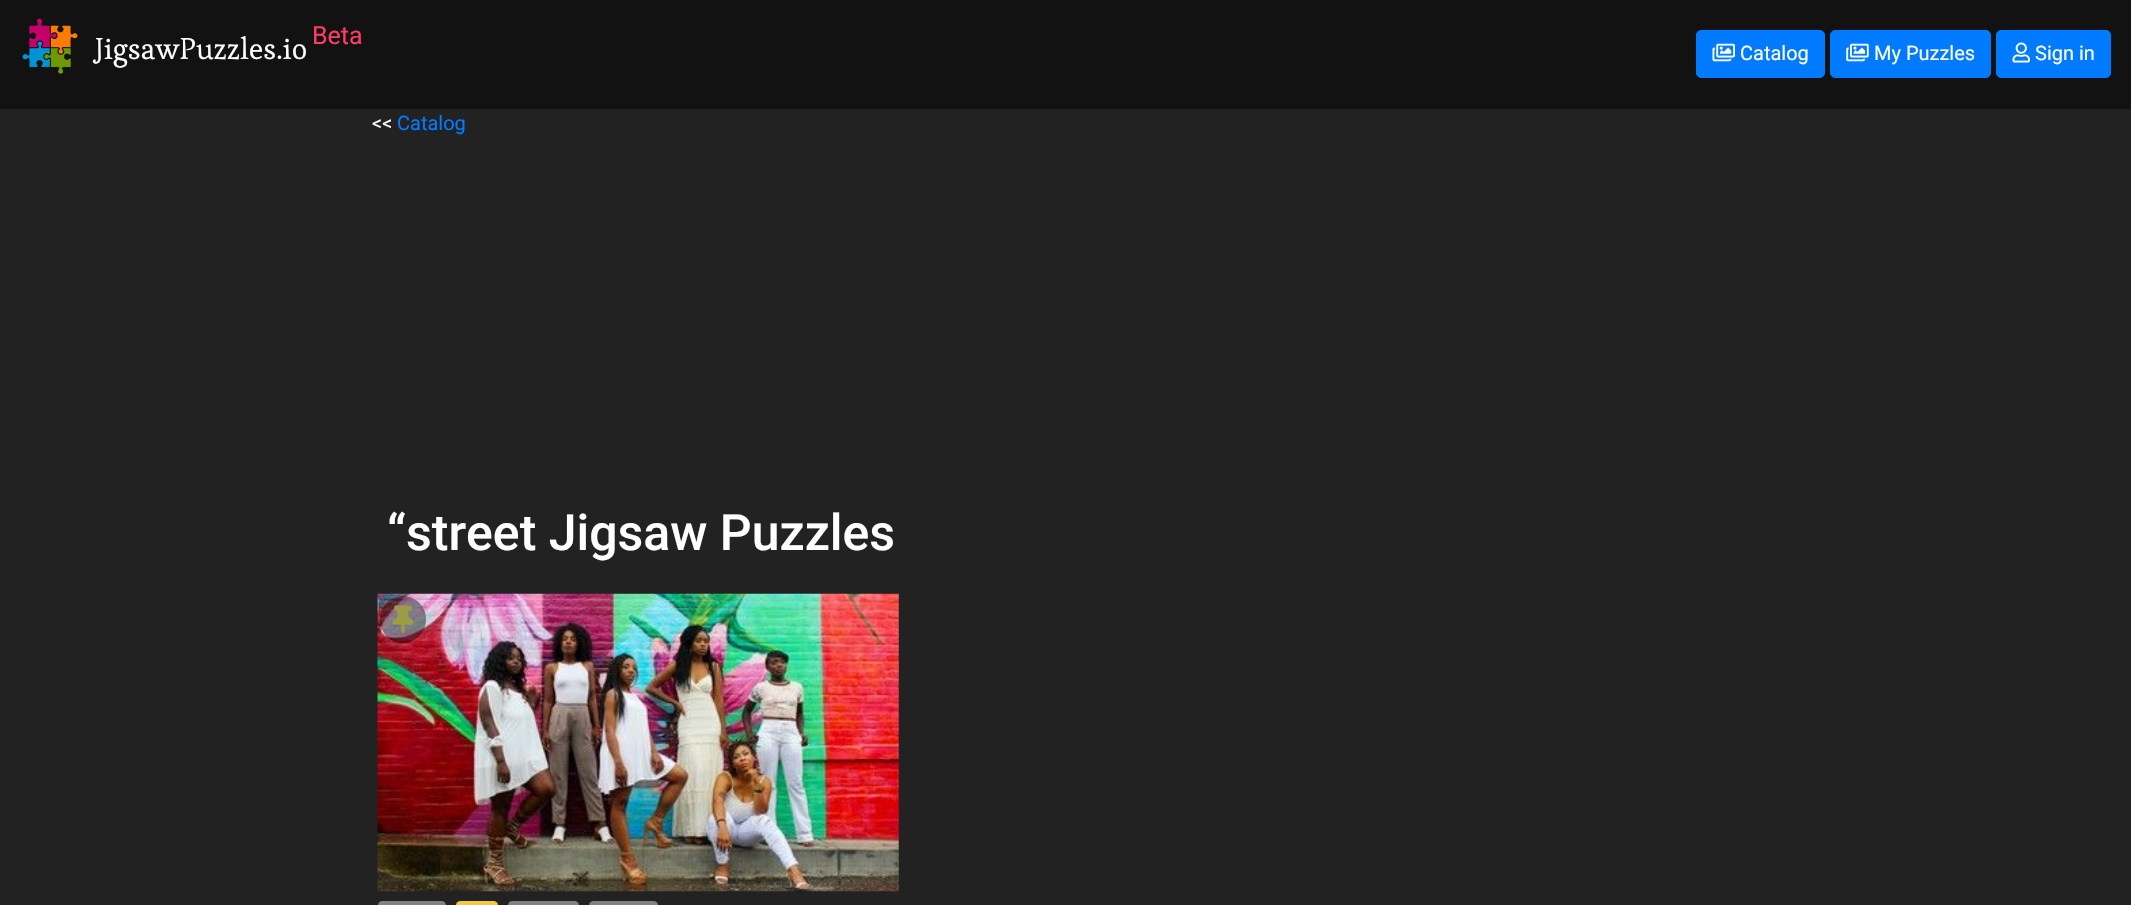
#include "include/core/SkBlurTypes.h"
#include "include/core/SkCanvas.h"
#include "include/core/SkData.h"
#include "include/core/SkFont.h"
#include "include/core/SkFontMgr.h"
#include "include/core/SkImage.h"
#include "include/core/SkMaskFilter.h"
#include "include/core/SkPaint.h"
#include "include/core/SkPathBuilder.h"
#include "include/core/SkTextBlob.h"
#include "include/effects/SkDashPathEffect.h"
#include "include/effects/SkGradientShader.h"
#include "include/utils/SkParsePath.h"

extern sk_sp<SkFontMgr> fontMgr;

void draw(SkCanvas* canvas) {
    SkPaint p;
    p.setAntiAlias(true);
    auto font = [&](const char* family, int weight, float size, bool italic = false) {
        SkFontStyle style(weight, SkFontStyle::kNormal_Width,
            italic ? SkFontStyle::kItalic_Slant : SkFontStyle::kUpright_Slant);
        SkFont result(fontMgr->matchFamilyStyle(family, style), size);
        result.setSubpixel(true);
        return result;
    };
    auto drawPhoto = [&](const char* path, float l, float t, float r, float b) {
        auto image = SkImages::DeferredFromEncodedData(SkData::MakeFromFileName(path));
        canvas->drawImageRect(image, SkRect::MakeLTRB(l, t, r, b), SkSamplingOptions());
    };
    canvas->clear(0xFF222222);
    p.setColor(0xFF121212);
    canvas->drawRect(SkRect::MakeLTRB(0, 0, 2131, 109), p);
    drawPhoto("media/1.png", 22, 18, 78, 74);
    auto font1 = font("Esteban", 400, 30);
    p.setColor(0xFFFFFFFF);
    canvas->drawString("JigsawPuzzles.io", 95, 59, font1, p);
    auto font2 = font("Roboto", 400, 25);
    p.setColor(0xFFFF3C66);
    canvas->drawString("Beta", 312, 44, font2, p);
    p.setColor(0xFF007BFF);
    canvas->drawRoundRect(SkRect::MakeLTRB(1696.5f, 30.5f, 1824.5f, 77.5f), 4.5f, 4.5f, p);
    p.setStyle(SkPaint::kStroke_Style);
    p.setStrokeWidth(1);
    canvas->drawRoundRect(SkRect::MakeLTRB(1696.5f, 30.5f, 1824.5f, 77.5f), 4.5f, 4.5f, p);
    drawPhoto("media/2.png", 1712, 43, 1735, 62);
    auto font3 = font("Roboto", 400, 20);
    p.setStyle(SkPaint::kFill_Style);
    p.setColor(0xFFFFFFFF);
    canvas->drawString("Catalog", 1740, 60, font3, p);
    p.setColor(0xFF007BFF);
    canvas->drawRoundRect(SkRect::MakeLTRB(1830.5f, 30.5f, 1990.5f, 77.5f), 4.5f, 4.5f, p);
    p.setStyle(SkPaint::kStroke_Style);
    canvas->drawRoundRect(SkRect::MakeLTRB(1830.5f, 30.5f, 1990.5f, 77.5f), 4.5f, 4.5f, p);
    drawPhoto("media/3.png", 1846, 43, 1869, 62);
    p.setStyle(SkPaint::kFill_Style);
    p.setColor(0xFFFFFFFF);
    canvas->drawString("My Puzzles", 1874, 60, font3, p);
    p.setColor(0xFF007BFF);
    canvas->drawRoundRect(SkRect::MakeLTRB(1996.5f, 30.5f, 2110.5f, 77.5f), 4.5f, 4.5f, p);
    p.setStyle(SkPaint::kStroke_Style);
    canvas->drawRoundRect(SkRect::MakeLTRB(1996.5f, 30.5f, 2110.5f, 77.5f), 4.5f, 4.5f, p);
    drawPhoto("media/4.png", 2012, 42, 2030, 63);
    p.setStyle(SkPaint::kFill_Style);
    p.setColor(0xFFFFFFFF);
    canvas->drawString("Sign in", 2035, 60, font3, p);
    canvas->drawString("<<", 372, 130, font3, p);
    p.setColor(0xFF007BFF);
    canvas->drawString("Catalog", 397, 130, font3, p);
    auto font4 = font("Roboto", 500, 50);
    p.setColor(0xFFFFFFFF);
    canvas->drawString("“street Jigsaw Puzzles", 387, 550, font4, p);
    drawPhoto("media/5.png", 377, 593, 899, 892);
    p.setColor(0x66000000);
    canvas->drawRoundRect(SkRect::MakeLTRB(380, 596, 426, 643), 23, 23, p);
    drawPhoto("media/6.png", 392, 605, 414, 634);
    p.setColor(0xFF818181);
    canvas->drawRoundRect(SkRect::MakeLTRB(378, 901, 446, 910), 5, 5, p);
    p.setColor(0xFFF5C749);
    canvas->drawRoundRect(SkRect::MakeLTRB(456, 901, 498, 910), 5, 5, p);
    p.setColor(0xFF818181);
    canvas->drawRoundRect(SkRect::MakeLTRB(508, 901, 579, 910), 5, 5, p);
    canvas->drawRoundRect(SkRect::MakeLTRB(589, 901, 658, 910), 5, 5, p);
}
